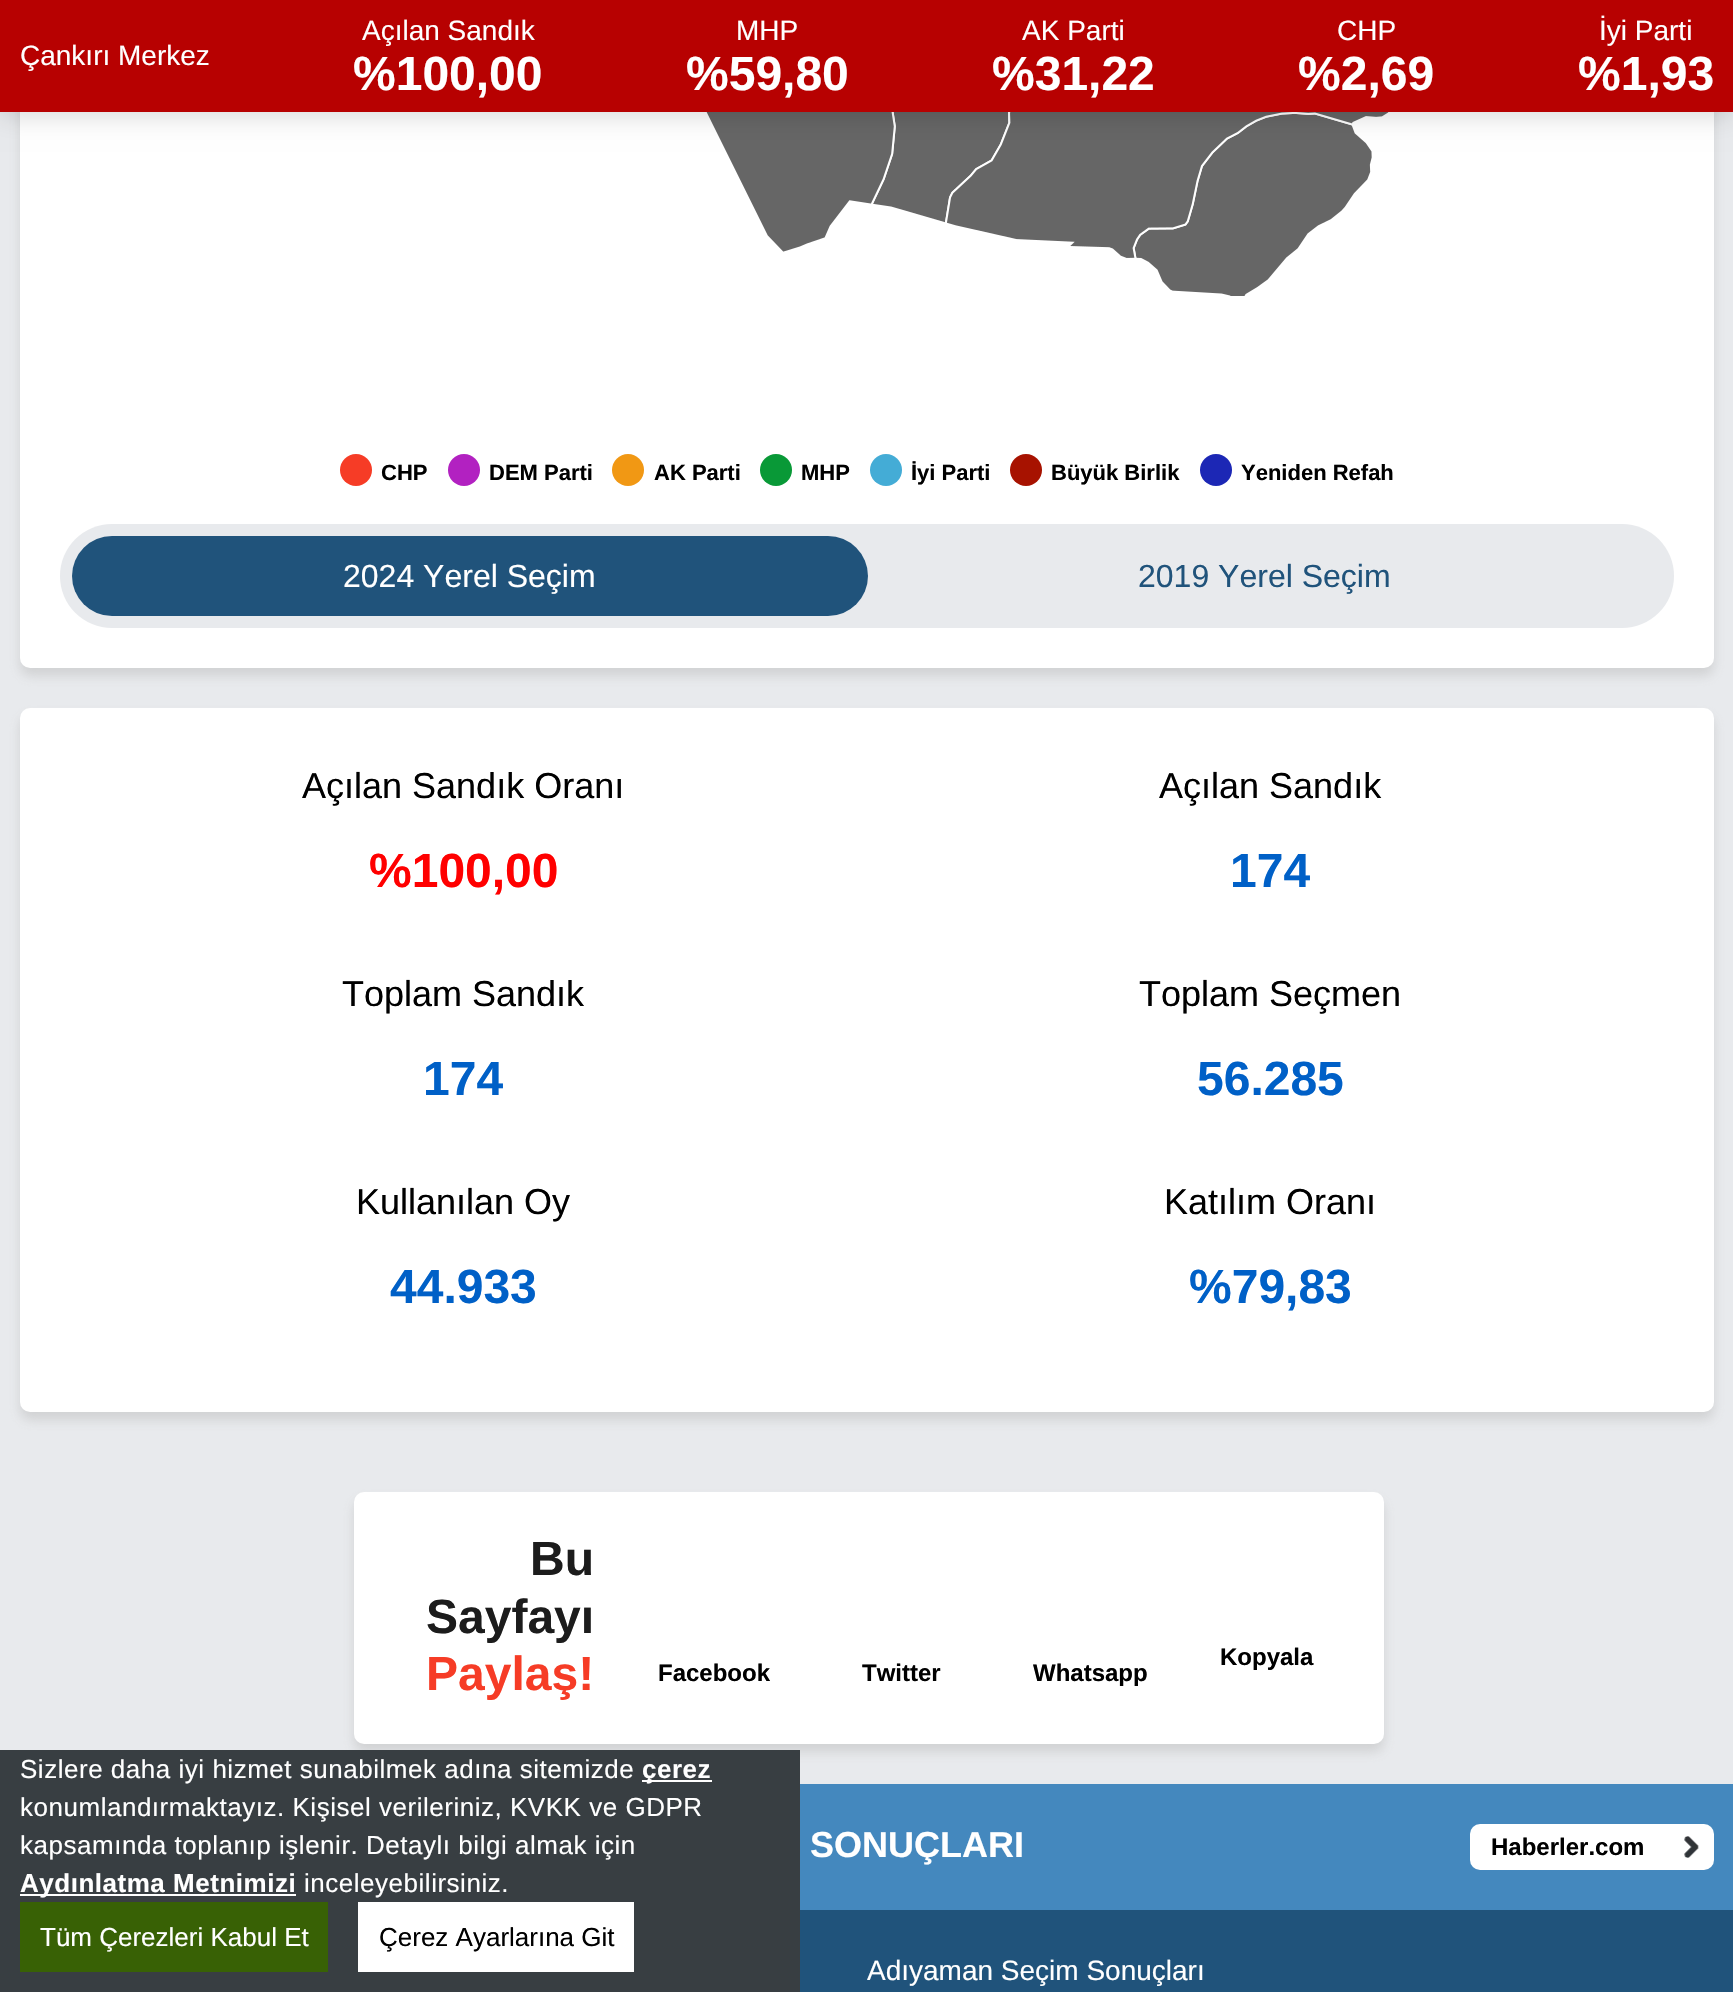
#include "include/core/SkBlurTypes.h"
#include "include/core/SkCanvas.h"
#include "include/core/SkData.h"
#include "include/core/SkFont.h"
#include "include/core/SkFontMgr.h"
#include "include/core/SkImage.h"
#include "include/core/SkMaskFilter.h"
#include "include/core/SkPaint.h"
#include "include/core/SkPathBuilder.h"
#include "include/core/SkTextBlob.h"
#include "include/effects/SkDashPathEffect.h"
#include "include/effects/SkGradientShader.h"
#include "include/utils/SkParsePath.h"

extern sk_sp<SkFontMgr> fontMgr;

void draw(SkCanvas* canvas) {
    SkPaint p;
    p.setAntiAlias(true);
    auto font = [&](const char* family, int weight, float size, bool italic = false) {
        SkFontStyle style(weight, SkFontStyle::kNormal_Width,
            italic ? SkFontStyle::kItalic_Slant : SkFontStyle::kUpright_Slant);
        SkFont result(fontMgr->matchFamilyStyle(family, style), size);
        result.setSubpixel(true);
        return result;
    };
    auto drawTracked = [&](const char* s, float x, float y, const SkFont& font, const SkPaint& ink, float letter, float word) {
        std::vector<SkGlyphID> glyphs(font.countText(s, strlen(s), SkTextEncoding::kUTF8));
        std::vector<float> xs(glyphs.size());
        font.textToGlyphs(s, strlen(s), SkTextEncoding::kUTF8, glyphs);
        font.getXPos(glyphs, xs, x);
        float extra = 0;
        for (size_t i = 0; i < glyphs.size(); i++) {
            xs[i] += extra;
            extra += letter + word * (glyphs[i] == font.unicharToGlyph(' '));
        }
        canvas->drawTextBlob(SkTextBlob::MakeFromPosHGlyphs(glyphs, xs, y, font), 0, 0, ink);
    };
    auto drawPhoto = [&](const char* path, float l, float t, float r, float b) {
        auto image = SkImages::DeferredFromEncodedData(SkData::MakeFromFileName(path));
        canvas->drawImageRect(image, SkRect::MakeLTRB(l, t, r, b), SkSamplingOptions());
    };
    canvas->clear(0xFFE8EAED);
    p.setColor(0x80B9B9B9);
    p.setMaskFilter(SkMaskFilter::MakeBlur(kNormal_SkBlurStyle, 6));
    canvas->drawRoundRect(SkRect::MakeLTRB(20, -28, 1714, 676), 10, 10, p);
    p.setMaskFilter(nullptr);
    p.setColor(0xFFFFFFFF);
    canvas->drawRoundRect(SkRect::MakeLTRB(20, -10, 1714, 668), 10, 10, p);
    drawPhoto("media/1.png", 704, 112, 1390, 296);
    p.setColor(0x26000000);
    p.setMaskFilter(SkMaskFilter::MakeBlur(kNormal_SkBlurStyle, 12));
    canvas->drawRect(SkRect::MakeLTRB(0, 4, 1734, 116), p);
    p.setMaskFilter(nullptr);
    p.setColor(0xFFB70101);
    canvas->drawRect(SkRect::MakeLTRB(0, 0, 1733, 112), p);
    auto font1 = font("Liberation Sans", 400, 28);
    p.setColor(0xFFFFFFFF);
    canvas->drawString("Çankırı Merkez", 20, 65, font1, p);
    canvas->drawString("Açılan Sandık", 362, 40, font1, p);
    auto font2 = font("Liberation Sans", 700, 48);
    canvas->drawString("%100,00", 353, 90, font2, p);
    canvas->drawString("MHP", 736, 40, font1, p);
    canvas->drawString("%59,80", 686, 90, font2, p);
    canvas->drawString("AK Parti", 1022, 40, font1, p);
    canvas->drawString("%31,22", 992, 90, font2, p);
    canvas->drawString("CHP", 1337, 40, font1, p);
    canvas->drawString("%2,69", 1298, 90, font2, p);
    canvas->drawString("İyi Parti", 1599, 40, font1, p);
    canvas->drawString("%1,93", 1578, 90, font2, p);
    p.setColor(0xFFF63C26);
    canvas->drawCircle(356, 470, 16, p);
    auto font3 = font("Liberation Sans", 700, 22);
    p.setColor(0xFF000000);
    canvas->drawString("CHP", 381, 480, font3, p);
    p.setColor(0xFFB221C1);
    canvas->drawCircle(464, 470, 16, p);
    p.setColor(0xFF000000);
    canvas->drawString("DEM Parti", 489, 480, font3, p);
    p.setColor(0xFFF19814);
    canvas->drawCircle(628, 470, 16, p);
    p.setColor(0xFF000000);
    canvas->drawString("AK Parti", 654, 480, font3, p);
    p.setColor(0xFF099937);
    canvas->drawCircle(776, 470, 16, p);
    p.setColor(0xFF000000);
    canvas->drawString("MHP", 801, 480, font3, p);
    p.setColor(0xFF44ACD6);
    canvas->drawCircle(886, 470, 16, p);
    p.setColor(0xFF000000);
    canvas->drawString("İyi Parti", 911, 480, font3, p);
    p.setColor(0xFFA71200);
    canvas->drawCircle(1026, 470, 16, p);
    p.setColor(0xFF000000);
    canvas->drawString("Büyük Birlik", 1051, 480, font3, p);
    p.setColor(0xFF1C27B5);
    canvas->drawCircle(1216, 470, 16, p);
    p.setColor(0xFF000000);
    canvas->drawString("Yeniden Refah", 1241, 480, font3, p);
    p.setColor(0xFFE8EAED);
    canvas->drawRoundRect(SkRect::MakeLTRB(60, 524, 1674, 628), 52, 52, p);
    p.setColor(0xFF20537B);
    canvas->drawRoundRect(SkRect::MakeLTRB(72, 536, 868, 616), 40, 40, p);
    auto font4 = font("Liberation Sans", 400, 32);
    p.setColor(0xFFFFFFFF);
    canvas->drawString("2024 Yerel Seçim", 343, 587, font4, p);
    p.setColor(0xFF20537B);
    canvas->drawString("2019 Yerel Seçim", 1138, 587, font4, p);
    p.setColor(0x80B9B9B9);
    p.setMaskFilter(SkMaskFilter::MakeBlur(kNormal_SkBlurStyle, 6));
    canvas->drawRoundRect(SkRect::MakeLTRB(20, 716, 1714, 1420), 10, 10, p);
    p.setMaskFilter(nullptr);
    p.setColor(0xFFFFFFFF);
    canvas->drawRoundRect(SkRect::MakeLTRB(20, 708, 1714, 1412), 10, 10, p);
    auto font5 = font("Liberation Sans", 400, 36);
    p.setColor(0xFF000000);
    canvas->drawString("Açılan Sandık Oranı", 302, 798, font5, p);
    p.setColor(0xFFFF0000);
    canvas->drawString("%100,00", 369, 887, font2, p);
    p.setColor(0xFF000000);
    canvas->drawString("Açılan Sandık", 1159, 798, font5, p);
    p.setColor(0xFF0060C7);
    canvas->drawString("174", 1230, 887, font2, p);
    p.setColor(0xFF000000);
    canvas->drawString("Toplam Sandık", 342, 1006, font5, p);
    p.setColor(0xFF0060C7);
    canvas->drawString("174", 423, 1095, font2, p);
    p.setColor(0xFF000000);
    canvas->drawString("Toplam Seçmen", 1139, 1006, font5, p);
    p.setColor(0xFF0060C7);
    canvas->drawString("56.285", 1197, 1095, font2, p);
    p.setColor(0xFF000000);
    canvas->drawString("Kullanılan Oy", 356, 1214, font5, p);
    p.setColor(0xFF0060C7);
    canvas->drawString("44.933", 390, 1303, font2, p);
    p.setColor(0xFF000000);
    canvas->drawString("Katılım Oranı", 1164, 1214, font5, p);
    p.setColor(0xFF0060C7);
    canvas->drawString("%79,83", 1189, 1303, font2, p);
    p.setColor(0x80B9B9B9);
    p.setMaskFilter(SkMaskFilter::MakeBlur(kNormal_SkBlurStyle, 6));
    canvas->drawRoundRect(SkRect::MakeLTRB(354, 1500, 1384, 1752), 10, 10, p);
    p.setMaskFilter(nullptr);
    p.setColor(0xFFFFFFFF);
    canvas->drawRoundRect(SkRect::MakeLTRB(354, 1492, 1384, 1744), 10, 10, p);
    p.setColor(0xFF1C1C1C);
    canvas->drawString("Bu", 530, 1575, font2, p);
    canvas->drawString("Sayfayı", 426, 1633, font2, p);
    p.setColor(0xFFF63C26);
    canvas->drawString("Paylaş!", 426, 1690, font2, p);
    auto font6 = font("Liberation Sans", 700, 24);
    p.setColor(0xFF000000);
    {
        const struct { const char* s; float x, y; } items[] = {
            {"Kopyala", 1220, 1665},
            {"Facebook", 658, 1681},
            {"Twitter", 862, 1681},
            {"Whatsapp", 1033, 1681},
        };
        for (auto [s, x, y] : items) {
            canvas->drawString(s, x, y, font6, p);
        }
    }
    p.setColor(0xFF383E42);
    canvas->drawRect(SkRect::MakeLTRB(0, 1750, 800, 1992), p);
    auto font7 = font("Liberation Sans", 400, 26);
    p.setColor(0xFFFFFFFF);
    drawTracked("Sizlere daha iyi hizmet sunabilmek adına sitemizde", 20, 1778, font7, p, 0.52f, 0);
    canvas->drawRect(SkRect::MakeLTRB(642, 1780, 712, 1782), p);
    auto font8 = font("Liberation Sans", 700, 26);
    drawTracked("çerez", 642, 1778, font8, p, 0.52f, 0);
    drawTracked("konumlandırmaktayız. Kişisel verileriniz, KVKK ve GDPR", 20, 1816, font7, p, 0.52f, 0);
    drawTracked("kapsamında toplanıp işlenir. Detaylı bilgi almak için", 20, 1854, font7, p, 0.52f, 0);
    canvas->drawRect(SkRect::MakeLTRB(20, 1894, 296, 1896), p);
    drawTracked("Aydınlatma Metnimizi", 20, 1892, font8, p, 0.52f, 0);
    drawTracked("inceleyebilirsiniz.", 304, 1892, font7, p, 0.52f, 0);
    p.setColor(0xFF386105);
    canvas->drawRect(SkRect::MakeLTRB(20, 1902, 328, 1972), p);
    p.setColor(0xFFFFFFFF);
    canvas->drawString("Tüm Çerezleri Kabul Et", 40, 1946, font7, p);
    canvas->drawRect(SkRect::MakeLTRB(358, 1902, 634, 1972), p);
    p.setColor(0xFF000000);
    canvas->drawString("Çerez Ayarlarına Git", 379, 1946, font7, p);
    p.setColor(0xFF4488BE);
    canvas->drawRect(SkRect::MakeLTRB(800, 1784, 1733, 1910), p);
    auto font9 = font("Liberation Sans", 700, 36);
    p.setColor(0xFFFFFFFF);
    canvas->drawString("SONUÇLARI", 810, 1857, font9, p);
    canvas->drawRoundRect(SkRect::MakeLTRB(1470, 1824, 1714, 1870), 10, 10, p);
    drawPhoto("media/2.png", 1684, 1836, 1699, 1858);
    p.setColor(0xFF000000);
    canvas->drawString("Haberler.com", 1491, 1855, font6, p);
    p.setColor(0xFF20537B);
    canvas->drawRect(SkRect::MakeLTRB(800, 1910, 1733, 1992), p);
    p.setColor(0xFFFFFFFF);
    canvas->drawString("Adıyaman Seçim Sonuçları", 867, 1980, font1, p);
}
